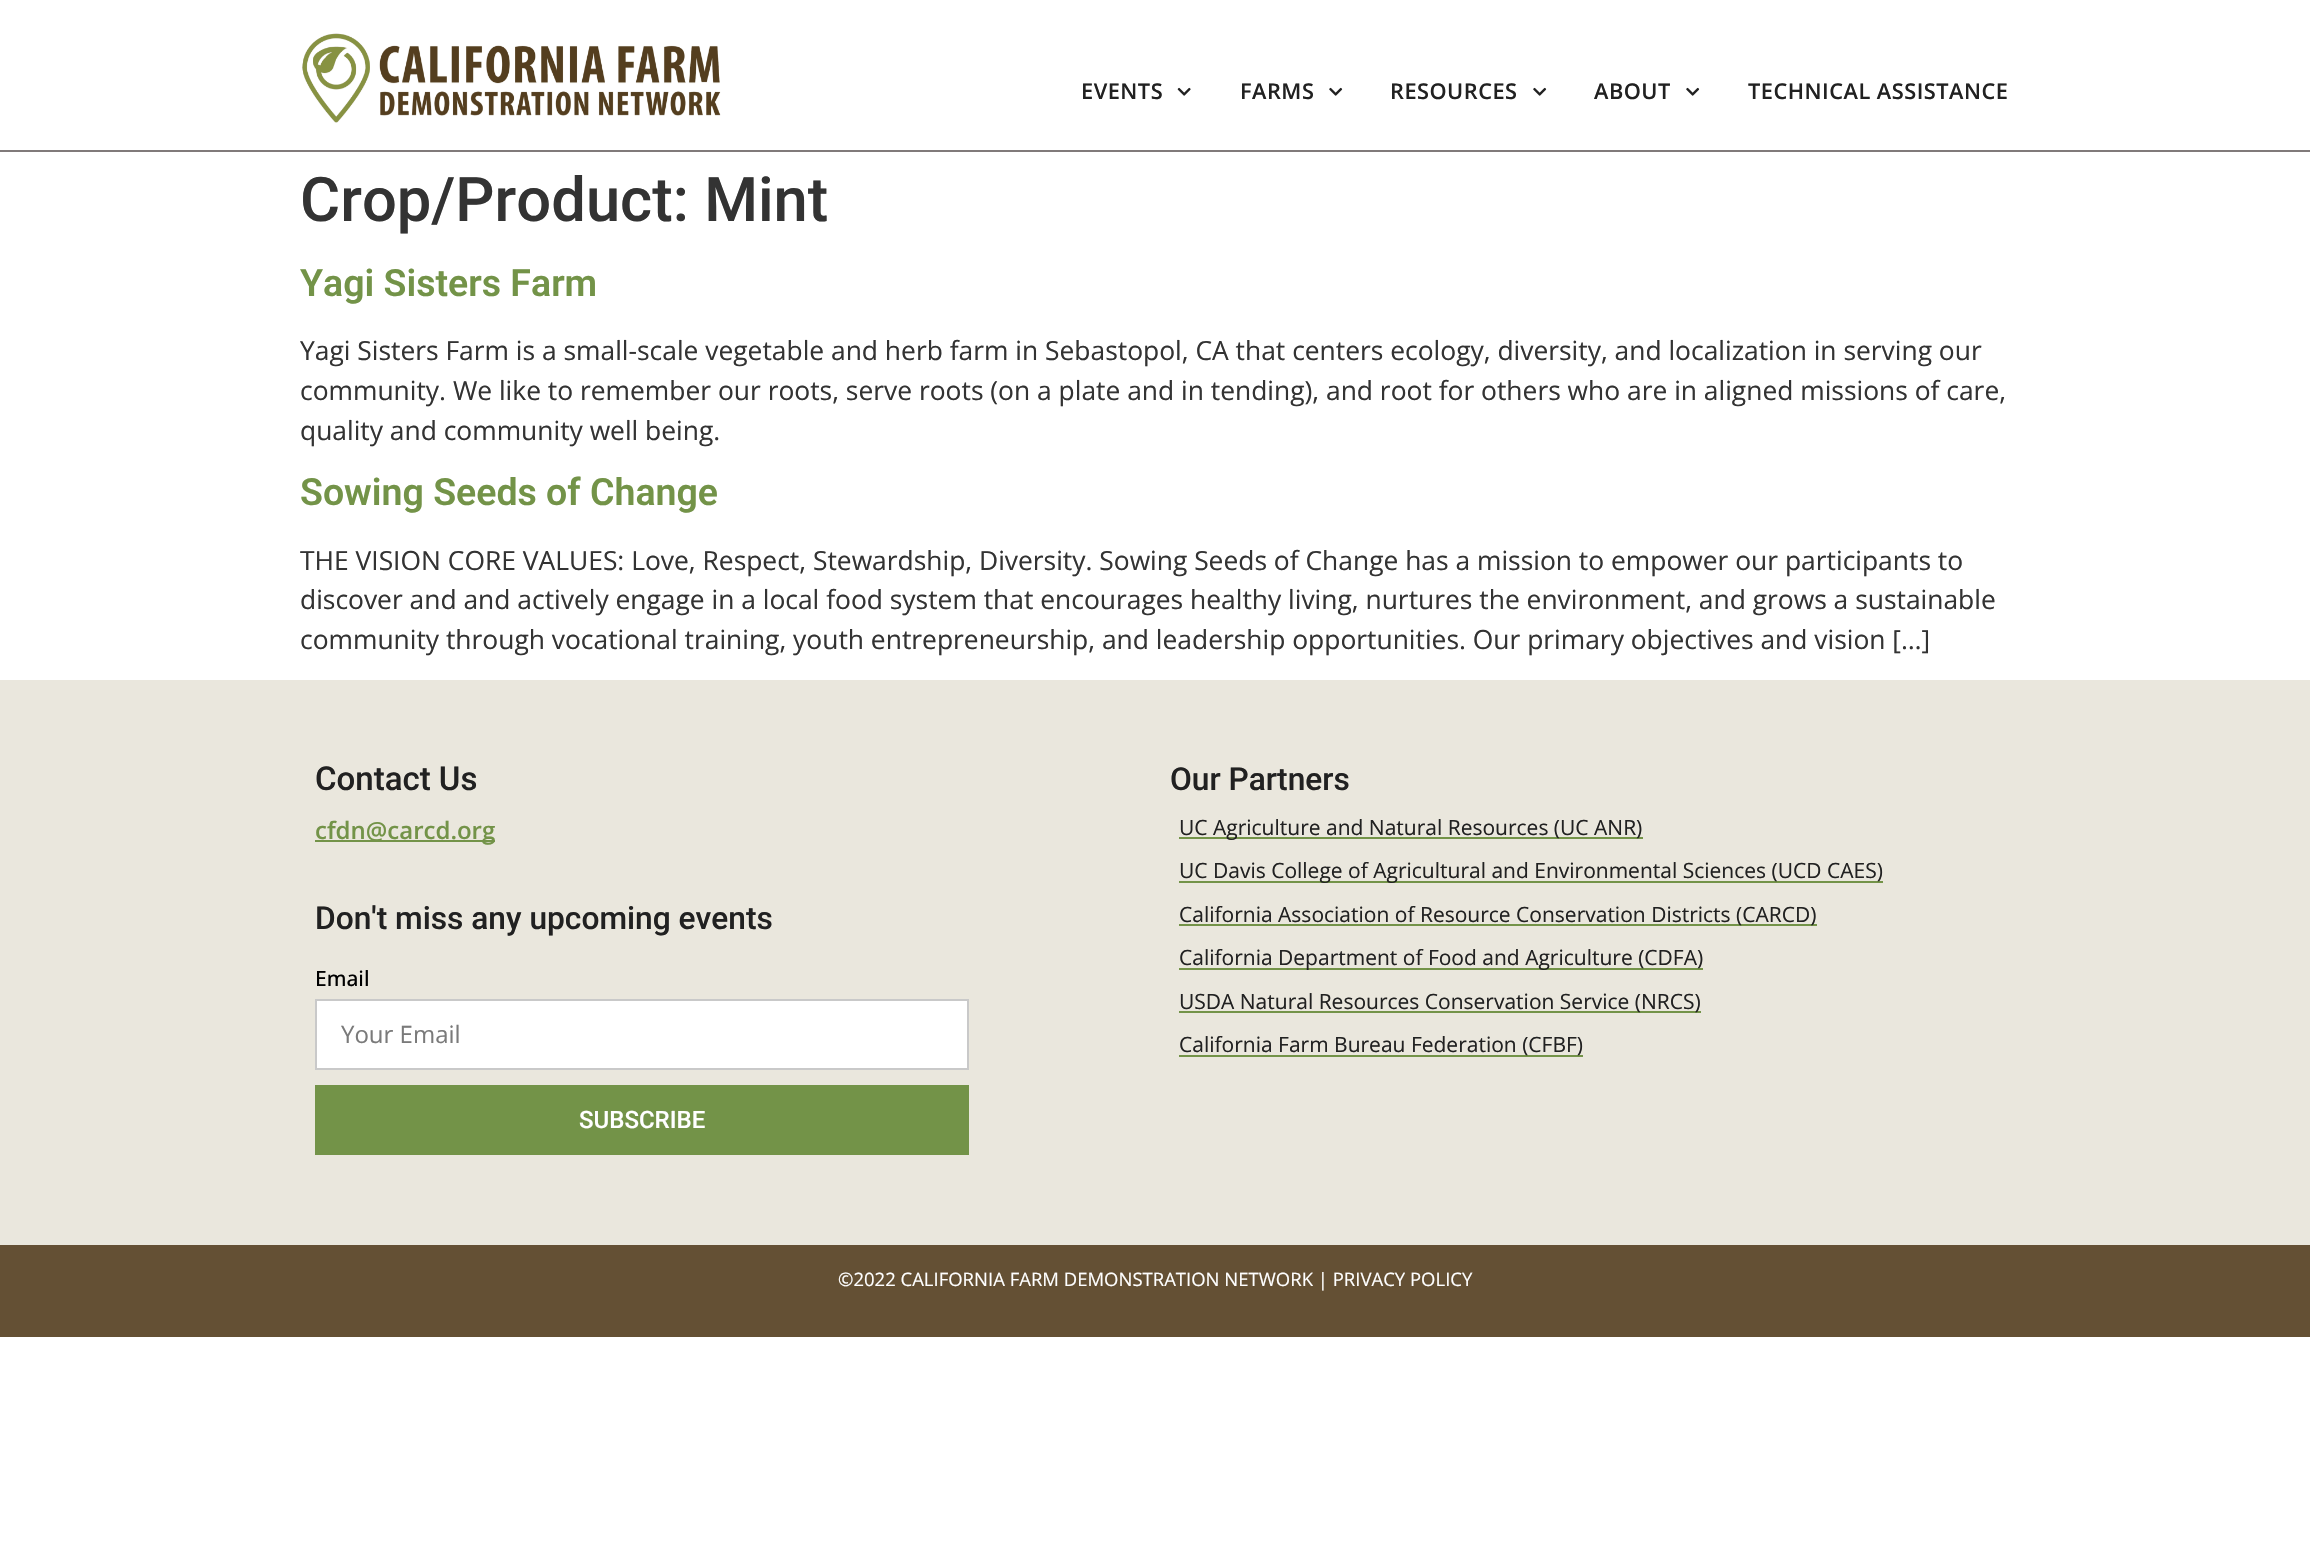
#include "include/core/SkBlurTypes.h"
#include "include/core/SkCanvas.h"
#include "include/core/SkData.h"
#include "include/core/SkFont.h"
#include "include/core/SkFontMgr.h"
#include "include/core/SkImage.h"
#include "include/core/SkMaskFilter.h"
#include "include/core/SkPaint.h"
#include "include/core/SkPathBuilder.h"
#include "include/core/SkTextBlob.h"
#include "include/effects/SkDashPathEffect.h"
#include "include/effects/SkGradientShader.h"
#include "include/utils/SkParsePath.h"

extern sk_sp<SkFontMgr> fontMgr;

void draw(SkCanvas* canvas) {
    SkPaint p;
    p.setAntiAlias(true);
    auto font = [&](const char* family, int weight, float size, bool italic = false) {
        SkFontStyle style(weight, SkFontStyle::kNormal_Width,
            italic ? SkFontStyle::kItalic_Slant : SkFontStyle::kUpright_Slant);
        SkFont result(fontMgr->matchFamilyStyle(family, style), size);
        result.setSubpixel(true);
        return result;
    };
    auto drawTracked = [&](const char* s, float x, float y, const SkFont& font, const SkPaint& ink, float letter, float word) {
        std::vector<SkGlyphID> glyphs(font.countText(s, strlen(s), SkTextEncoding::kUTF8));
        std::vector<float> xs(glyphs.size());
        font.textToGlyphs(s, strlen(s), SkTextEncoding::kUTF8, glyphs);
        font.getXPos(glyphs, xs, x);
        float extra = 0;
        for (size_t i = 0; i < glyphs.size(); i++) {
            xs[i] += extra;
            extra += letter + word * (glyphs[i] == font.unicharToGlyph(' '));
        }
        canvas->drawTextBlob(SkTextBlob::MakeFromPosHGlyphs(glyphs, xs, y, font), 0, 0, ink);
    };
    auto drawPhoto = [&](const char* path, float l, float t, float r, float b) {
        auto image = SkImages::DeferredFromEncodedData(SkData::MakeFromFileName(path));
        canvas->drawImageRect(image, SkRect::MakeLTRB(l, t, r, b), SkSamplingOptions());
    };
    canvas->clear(0xFFFFFFFF);
    p.setColor(0xFF807A7A);
    canvas->drawRect(SkRect::MakeLTRB(0, 150, 2310, 152), p);
    drawPhoto("media/1.png", 302, 33, 721, 123);
    auto font1 = font("Open Sans", 600, 21.75f);
    p.setColor(0xFF212121);
    drawTracked("EVENTS", 1081, 99, font1, p, 0.5f, 0);
    drawPhoto("media/2.png", 1177, 87, 1191, 96);
    drawTracked("FARMS", 1240, 99, font1, p, 0.5f, 0);
    drawPhoto("media/3.png", 1329, 87, 1343, 96);
    drawTracked("RESOURCES", 1390, 99, font1, p, 0.5f, 0);
    drawPhoto("media/3.png", 1533, 87, 1547, 96);
    drawTracked("ABOUT", 1594, 99, font1, p, 0.5f, 0);
    drawPhoto("media/3.png", 1686, 87, 1700, 96);
    drawTracked("TECHNICAL ASSISTANCE", 1748, 99, font1, p, 0.5f, 0);
    auto font2 = font("Roboto", 500, 61.5f);
    p.setColor(0xFF333333);
    canvas->drawString("Crop/Product: Mint", 300, 221, font2, p);
    auto font3 = font("Roboto", 600, 37.5f);
    p.setColor(0xFF739348);
    canvas->drawString("Yagi Sisters Farm", 300, 296, font3, p);
    auto font4 = font("Open Sans", 400, 26.4f);
    p.setColor(0xFF333333);
    {
        const struct { const char* s; float x, y; } items[] = {
            {"Yagi Sisters Farm is a small-scale vegetable and herb farm in Sebastopol, CA that centers ecology, diversity, and localization in serving our", 300, 360},
            {"community. We like to remember our roots, serve roots (on a plate and in tending), and root for others who are in aligned missions of care,", 300, 400},
            {"quality and community well being.", 300, 440},
        };
        for (auto [s, x, y] : items) {
            canvas->drawString(s, x, y, font4, p);
        }
    }
    p.setColor(0xFF739348);
    canvas->drawString("Sowing Seeds of Change", 300, 505, font3, p);
    p.setColor(0xFF333333);
    {
        const struct { const char* s; float x, y; } items[] = {
            {"THE VISION CORE VALUES: Love, Respect, Stewardship, Diversity. Sowing Seeds of Change has a mission to empower our participants to", 300, 570},
            {"discover and and actively engage in a local food system that encourages healthy living, nurtures the environment, and grows a sustainable", 300, 609},
            {"community through vocational training, youth entrepreneurship, and leadership opportunities. Our primary objectives and vision […]", 300, 649},
        };
        for (auto [s, x, y] : items) {
            canvas->drawString(s, x, y, font4, p);
        }
    }
    p.setColor(0xFFEAE7DD);
    canvas->drawRect(SkRect::MakeLTRB(0, 680, 2310, 1245), p);
    auto font5 = font("Roboto", 500, 33);
    p.setColor(0xFF212121);
    canvas->drawString("Contact Us", 315, 790, font5, p);
    p.setColor(0xFF739348);
    canvas->drawRect(SkRect::MakeLTRB(315, 840, 495, 842), p);
    auto font6 = font("Open Sans", 600, 24);
    canvas->drawString("cfdn@carcd.org", 315, 839, font6, p);
    auto font7 = font("Roboto", 500, 31.7f);
    p.setColor(0xFF212121);
    canvas->drawString("Don't miss any upcoming events", 315, 929, font7, p);
    auto font8 = font("Open Sans", 500, 21);
    p.setColor(0xFF000000);
    canvas->drawString("Email", 315, 986, font8, p);
    p.setColor(0xFFFFFFFF);
    canvas->drawRect(SkRect::MakeLTRB(316, 1000, 968, 1069), p);
    p.setStyle(SkPaint::kStroke_Style);
    p.setStrokeWidth(2);
    p.setColor(0xFFC9C9C9);
    canvas->drawRect(SkRect::MakeLTRB(316, 1000, 968, 1069), p);
    auto font9 = font("Open Sans", 400, 24);
    p.setStyle(SkPaint::kFill_Style);
    p.setColor(0xFF7A7A7A);
    canvas->drawString("Your Email", 341, 1043, font9, p);
    p.setColor(0xFF739348);
    canvas->drawRect(SkRect::MakeLTRB(315, 1085, 969, 1155), p);
    auto font10 = font("Roboto", 500, 24);
    p.setColor(0xFFFFFFFF);
    canvas->drawString("SUBSCRIBE", 579, 1128, font10, p);
    p.setColor(0xFF212121);
    canvas->drawString("Our Partners", 1170, 790, font7, p);
    p.setColor(0xFF739348);
    canvas->drawRect(SkRect::MakeLTRB(1179, 837, 1643, 839), p);
    auto font11 = font("Open Sans", 400, 21);
    p.setColor(0xFF212121);
    canvas->drawString("UC Agriculture and Natural Resources (UC ANR)", 1179, 835, font11, p);
    p.setColor(0xFF739348);
    canvas->drawRect(SkRect::MakeLTRB(1179, 881, 1883, 883), p);
    p.setColor(0xFF212121);
    canvas->drawString("UC Davis College of Agricultural and Environmental Sciences (UCD CAES)", 1179, 878, font11, p);
    p.setColor(0xFF739348);
    canvas->drawRect(SkRect::MakeLTRB(1179, 924, 1817, 926), p);
    p.setColor(0xFF212121);
    canvas->drawString("California Association of Resource Conservation Districts (CARCD)", 1179, 922, font11, p);
    p.setColor(0xFF739348);
    canvas->drawRect(SkRect::MakeLTRB(1179, 968, 1703, 970), p);
    p.setColor(0xFF212121);
    canvas->drawString("California Department of Food and Agriculture (CDFA)", 1179, 965, font11, p);
    p.setColor(0xFF739348);
    canvas->drawRect(SkRect::MakeLTRB(1179, 1011, 1701, 1013), p);
    p.setColor(0xFF212121);
    canvas->drawString("USDA Natural Resources Conservation Service (NRCS)", 1179, 1009, font11, p);
    p.setColor(0xFF739348);
    canvas->drawRect(SkRect::MakeLTRB(1179, 1055, 1583, 1057), p);
    p.setColor(0xFF212121);
    canvas->drawString("California Farm Bureau Federation (CFBF)", 1179, 1052, font11, p);
    p.setColor(0xFF645034);
    canvas->drawRect(SkRect::MakeLTRB(0, 1245, 2310, 1337), p);
    auto font12 = font("Open Sans", 400, 18.5f);
    p.setColor(0xFFFFFFFF);
    canvas->drawString("©2022 CALIFORNIA FARM DEMONSTRATION NETWORK | PRIVACY POLICY", 838, 1286, font12, p);
}
